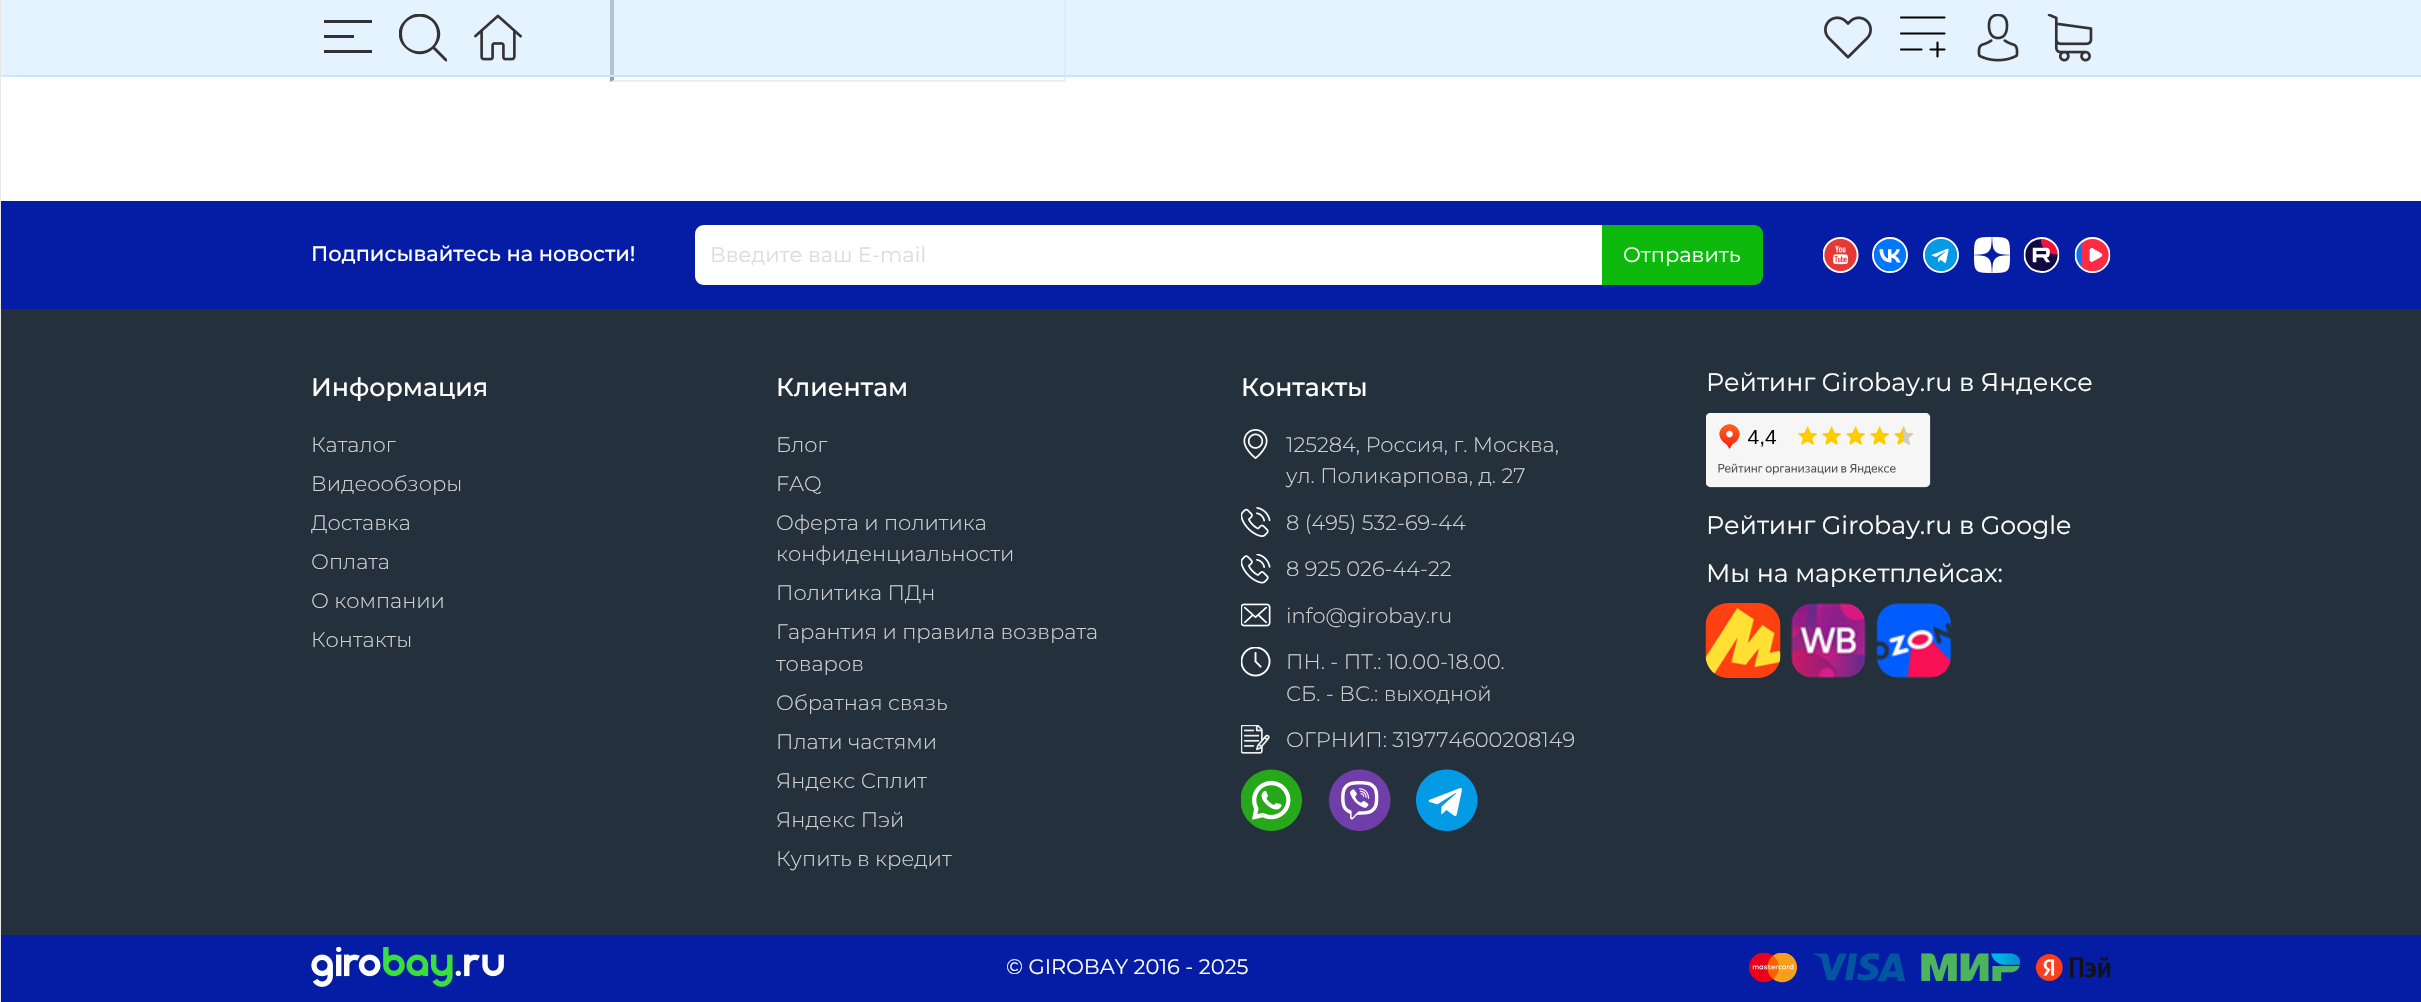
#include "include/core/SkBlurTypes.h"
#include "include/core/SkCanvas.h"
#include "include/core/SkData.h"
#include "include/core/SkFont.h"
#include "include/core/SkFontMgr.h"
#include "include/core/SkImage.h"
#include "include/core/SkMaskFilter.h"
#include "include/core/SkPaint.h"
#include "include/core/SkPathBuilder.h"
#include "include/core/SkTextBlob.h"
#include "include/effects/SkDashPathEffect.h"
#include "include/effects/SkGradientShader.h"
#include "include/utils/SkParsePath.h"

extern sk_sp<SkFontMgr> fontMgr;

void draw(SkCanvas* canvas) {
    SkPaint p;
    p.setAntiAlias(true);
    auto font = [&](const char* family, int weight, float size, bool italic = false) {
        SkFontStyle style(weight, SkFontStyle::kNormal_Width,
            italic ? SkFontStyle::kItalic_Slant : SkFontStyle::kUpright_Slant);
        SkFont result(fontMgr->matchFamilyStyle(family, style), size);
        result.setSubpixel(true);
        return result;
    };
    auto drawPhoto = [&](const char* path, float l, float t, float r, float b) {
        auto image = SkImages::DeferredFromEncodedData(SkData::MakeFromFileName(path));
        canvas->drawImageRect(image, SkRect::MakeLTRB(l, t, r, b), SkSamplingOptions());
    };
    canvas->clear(0xFFFFFFFF);
    p.setColor(0xFFEEEEEE);
    canvas->drawPath(SkPathBuilder().moveTo(1066, -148).lineTo(1066, 82).lineTo(1064, 80).lineTo(1064, -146).close().detach(), p);
    canvas->drawPath(SkPathBuilder().moveTo(1066, 82).lineTo(610, 82).lineTo(614, 80).lineTo(1064, 80).close().detach(), p);
    p.setColor(0xFF9F9F9F);
    canvas->drawPath(SkPathBuilder().moveTo(610, 82).lineTo(610, -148).lineTo(614, -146).lineTo(614, 80).close().detach(), p);
    {
        const struct { float l, t, r, b; SkColor color; } items[] = {
            {0, 75, 2421, 77, 0xFFCCE5FF},
            {0, 0, 1, 1002, 0xFFE7E7E7},
            {1, 0, 2421, 75, 0x80CCE5FF},
            {324, 20, 372, 23, 0xFF333333},
            {324, 35, 354, 38, 0xFF333333},
            {324, 50, 372, 53, 0xFF333333},
        };
        for (auto [l, t, r, b, color] : items) {
            p.setColor(color);
            canvas->drawRect(SkRect::MakeLTRB(l, t, r, b), p);
        }
    }
    canvas->save();
    canvas->clipRect(SkRect::MakeLTRB(399, 14, 447, 62));
    canvas->drawPath(SkPathBuilder().moveTo(447, 59).lineTo(435, 47).cubicTo(452, 28, 424, 1, 405, 20).cubicTo(386, 38, 414, 66, 433, 49).lineTo(443, 59).cubicTo(447, 64, 448, 60, 447, 59).close().moveTo(402, 34).cubicTo(402, 11, 437, 11, 437, 34).cubicTo(437, 57, 402, 57, 402, 34).close().detach(), p);
    canvas->restore();
    drawPhoto("media/1.png", 474, 14, 522, 61);
    drawPhoto("media/2.png", 1824, 16, 1872, 59);
    p.setStyle(SkPaint::kStroke_Style);
    p.setStrokeWidth(2.1f);
    p.setStrokeCap(SkPaint::kRound_Cap);
    p.setColor(0xFF000000);
    canvas->drawPath(SkPathBuilder().moveTo(1901, 17.5f).lineTo(1944.5f, 17.5f).moveTo(1901, 33.5f).lineTo(1944.5f, 33.5f).moveTo(1901, 49.5f).lineTo(1921.5f, 49.5f).moveTo(1930.5f, 49.5f).lineTo(1944.5f, 49.5f).moveTo(1937.5f, 42.5f).lineTo(1937.5f, 56.5f).detach(), p);
    drawPhoto("media/3.png", 1977, 14, 2019, 62);
    drawPhoto("media/4.png", 2047, 14, 2093, 62);
    p.setStyle(SkPaint::kFill_Style);
    p.setColor(0xFF051DA5);
    canvas->drawRect(SkRect::MakeLTRB(1, 201, 2421, 309), p);
    auto font1 = font("Montserrat", 500, 21);
    p.setColor(0xFFFFFFFF);
    canvas->drawString("Подписывайтесь на новости!", 311, 261, font1, p);
    canvas->drawPath(SkPathBuilder().moveTo(704, 225).lineTo(1602, 225).lineTo(1602, 285).lineTo(704, 285).cubicTo(699, 285, 695, 281, 695, 276).lineTo(695, 234).cubicTo(695, 229, 699, 225, 704, 225).close().detach(), p);
    auto font2 = font("Montserrat", 400, 21);
    p.setColor(0xFFDDDDDD);
    canvas->drawString("Введите ваш E-mail", 710, 262, font2, p);
    p.setColor(0xFF0DB90D);
    canvas->drawPath(SkPathBuilder().moveTo(1602, 225).lineTo(1754, 225).cubicTo(1759, 225, 1763, 229, 1763, 234).lineTo(1763, 276).cubicTo(1763, 281, 1759, 285, 1754, 285).lineTo(1602, 285).close().detach(), p);
    p.setColor(0xFFFFFFFF);
    canvas->drawString("Отправить", 1623, 262, font2, p);
    drawPhoto("media/5.png", 1823, 237, 1859, 273);
    drawPhoto("media/6.png", 1872, 237, 1908, 273);
    drawPhoto("media/7.png", 1923, 237, 1959, 273);
    drawPhoto("media/8.png", 1974, 237, 2010, 273);
    drawPhoto("media/9.png", 2023, 237, 2060, 273);
    drawPhoto("media/10.png", 2074, 237, 2111, 273);
    p.setColor(0xFF25303D);
    canvas->drawRect(SkRect::MakeLTRB(1, 309, 2421, 935), p);
    auto font3 = font("Montserrat", 500, 25.25f);
    p.setColor(0xFFFFFFFF);
    canvas->drawString("Информация", 311, 396, font3, p);
    auto font4 = font("Montserrat", 300, 21);
    p.setColor(0xFFD2D1D1);
    {
        const struct { const char* s; float x, y; } items[] = {
            {"Каталог", 311, 452},
            {"Видеообзоры", 311, 491},
            {"Доставка", 311, 530},
            {"Оплата", 311, 569},
            {"О компании", 311, 608},
            {"Контакты", 311, 647},
        };
        for (auto [s, x, y] : items) {
            canvas->drawString(s, x, y, font4, p);
        }
    }
    p.setColor(0xFFFFFFFF);
    canvas->drawString("Клиентам", 776, 396, font3, p);
    p.setColor(0xFFD2D1D1);
    {
        const struct { const char* s; float x, y; } items[] = {
            {"Блог", 776, 452},
            {"FAQ", 776, 491},
            {"Оферта и политика", 776, 530},
            {"конфиденциальности", 776, 561},
            {"Политика ПДн", 776, 600},
            {"Гарантия и правила возврата", 776, 639},
            {"товаров", 776, 671},
            {"Обратная связь", 776, 710},
            {"Плати частями", 776, 749},
            {"Яндекс Сплит", 776, 788},
            {"Яндекс Пэй", 776, 827},
            {"Купить в кредит", 776, 866},
        };
        for (auto [s, x, y] : items) {
            canvas->drawString(s, x, y, font4, p);
        }
    }
    p.setColor(0xFFFFFFFF);
    canvas->drawString("Контакты", 1241, 396, font3, p);
    drawPhoto("media/11.png", 1243, 429, 1268, 459);
    p.setColor(0xFFD2D1D1);
    canvas->drawString("125284, Россия, г. Москва,", 1286, 452, font4, p);
    canvas->drawString("ул. Поликарпова, д. 27", 1286, 483, font4, p);
    drawPhoto("media/12.png", 1241, 507, 1271, 537);
    canvas->drawString("8 (495) 532-69-44", 1286, 530, font4, p);
    drawPhoto("media/13.png", 1241, 554, 1271, 584);
    canvas->drawString("8 925 026-44-22", 1286, 576, font4, p);
    drawPhoto("media/14.png", 1241, 603, 1271, 627);
    canvas->drawString("info@girobay.ru", 1286, 623, font4, p);
    drawPhoto("media/15.png", 1241, 647, 1271, 677);
    canvas->drawString("ПН. - ПТ.: 10.00-18.00.", 1286, 669, font4, p);
    canvas->drawString("СБ. - ВС.: выходной", 1286, 701, font4, p);
    drawPhoto("media/16.png", 1241, 725, 1270, 754);
    canvas->drawString("ОГРНИП: 319774600208149", 1286, 747, font4, p);
    drawPhoto("media/17.png", 1241, 769, 1302, 831);
    drawPhoto("media/18.png", 1329, 769, 1391, 831);
    drawPhoto("media/19.png", 1416, 769, 1478, 831);
    auto font5 = font("Montserrat", 400, 25.25f);
    p.setColor(0xFFFFFFFF);
    canvas->drawString("Рейтинг Girobay.ru в Яндексе", 1706, 391, font5, p);
    drawPhoto("media/20.png", 1706, 413, 1931, 488);
    canvas->drawString("Рейтинг Girobay.ru в Google", 1706, 534, font5, p);
    canvas->drawString("Мы на маркетплейсах:", 1706, 582, font5, p);
    drawPhoto("media/21.png", 1705, 603, 1781, 678);
    drawPhoto("media/22.png", 1791, 603, 1866, 678);
    drawPhoto("media/23.png", 1876, 603, 1952, 678);
    p.setColor(0xFF051DA5);
    canvas->drawRect(SkRect::MakeLTRB(1, 935, 2421, 1002), p);
    drawPhoto("media/24.png", 311, 947, 504, 987);
    p.setColor(0xFFFFFFFF);
    canvas->drawString("© GIROBAY 2016 - 2025", 1006, 974, font2, p);
    drawPhoto("media/25.png", 1749, 953, 1797, 983);
    drawPhoto("media/26.png", 1813, 953, 1905, 981);
    drawPhoto("media/27.png", 1921, 953, 2020, 981);
    drawPhoto("media/28.png", 2035, 953, 2111, 982);
}
